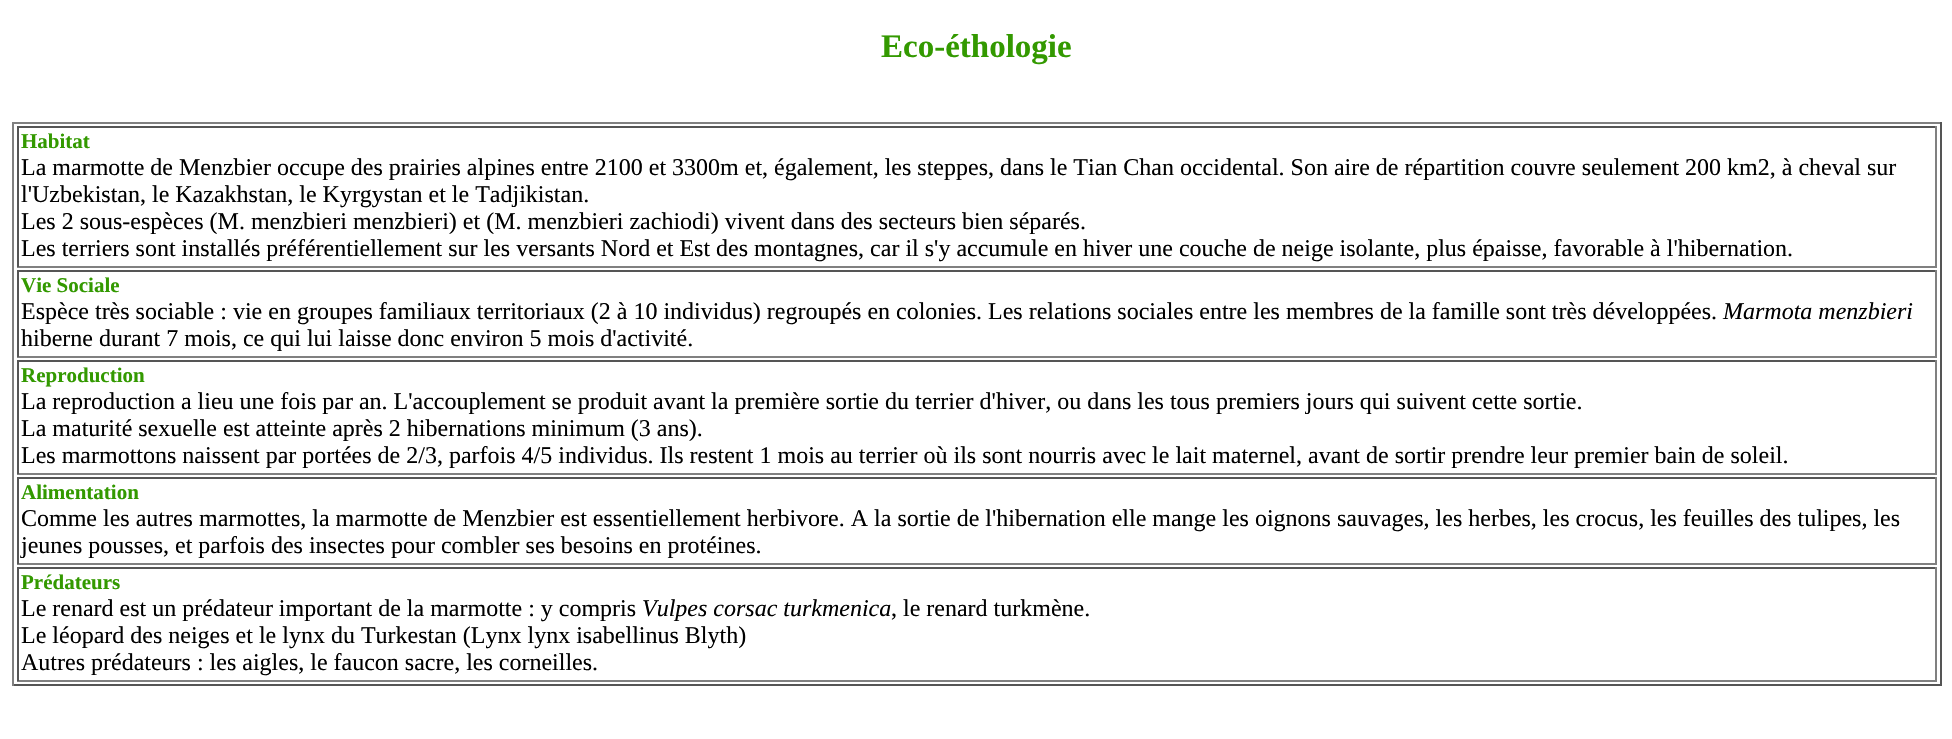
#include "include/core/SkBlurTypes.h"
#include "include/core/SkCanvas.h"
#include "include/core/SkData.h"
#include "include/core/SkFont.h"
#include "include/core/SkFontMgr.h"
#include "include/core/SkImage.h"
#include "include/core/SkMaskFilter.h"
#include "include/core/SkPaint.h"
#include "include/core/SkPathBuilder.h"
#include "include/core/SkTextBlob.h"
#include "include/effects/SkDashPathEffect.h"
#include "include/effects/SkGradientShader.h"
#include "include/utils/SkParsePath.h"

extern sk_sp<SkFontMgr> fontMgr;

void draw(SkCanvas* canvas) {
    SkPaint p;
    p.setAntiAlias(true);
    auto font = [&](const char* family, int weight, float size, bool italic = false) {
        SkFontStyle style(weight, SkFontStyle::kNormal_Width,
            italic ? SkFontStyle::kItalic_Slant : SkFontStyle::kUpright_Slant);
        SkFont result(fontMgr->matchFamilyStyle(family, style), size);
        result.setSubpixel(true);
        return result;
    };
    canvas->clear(0xFFFFFFFF);
    auto font1 = font("Liberation Serif", 700, 33);
    p.setColor(0xFF339900);
    canvas->drawString("Eco-éthologie", 881, 57, font1, p);
    {
        const struct { float l, t, r, b; SkColor color; } items[] = {
            {12, 122, 1941, 124, 0xFF808080},
            {1940, 122, 1942, 686, 0xFF555555},
            {12, 684, 1941, 686, 0xFF555555},
            {12, 122, 14, 686, 0xFF808080},
            {17, 126, 1937, 128, 0xFF555555},
            {1935, 126, 1937, 267, 0xFF808080},
            {17, 266, 1937, 268, 0xFF808080},
            {17, 126, 19, 267, 0xFF555555},
        };
        for (auto [l, t, r, b, color] : items) {
            p.setColor(color);
            canvas->drawRect(SkRect::MakeLTRB(l, t, r, b), p);
        }
    }
    auto font2 = font("Liberation Serif", 700, 21);
    p.setColor(0xFF339900);
    canvas->drawString("Habitat", 21, 148, font2, p);
    auto font3 = font("Liberation Serif", 400, 24);
    p.setColor(0xFF000000);
    {
        const struct { const char* s; float x, y; } items[] = {
            {"La marmotte de Menzbier occupe des prairies alpines entre 2100 et 3300m et, également, les steppes, dans le Tian Chan occidental. Son aire de répartition couvre seulement 200 km2, à cheval sur", 21, 175},
            {"l'Uzbekistan, le Kazakhstan, le Kyrgystan et le Tadjikistan.", 21, 202},
            {"Les 2 sous-espèces (M. menzbieri menzbieri) et (M. menzbieri zachiodi) vivent dans des secteurs bien séparés.", 21, 229},
            {"Les terriers sont installés préférentiellement sur les versants Nord et Est des montagnes, car il s'y accumule en hiver une couche de neige isolante, plus épaisse, favorable à l'hibernation.", 21, 256},
        };
        for (auto [s, x, y] : items) {
            canvas->drawString(s, x, y, font3, p);
        }
    }
    {
        const struct { float l, t, r, b; SkColor color; } items[] = {
            {17, 270, 1937, 272, 0xFF555555},
            {1935, 270, 1937, 357, 0xFF808080},
            {17, 356, 1937, 358, 0xFF808080},
            {17, 270, 19, 357, 0xFF555555},
        };
        for (auto [l, t, r, b, color] : items) {
            p.setColor(color);
            canvas->drawRect(SkRect::MakeLTRB(l, t, r, b), p);
        }
    }
    p.setColor(0xFF339900);
    canvas->drawString("Vie Sociale", 21, 292, font2, p);
    p.setColor(0xFF000000);
    canvas->drawString("Espèce très sociable : vie en groupes familiaux territoriaux (2 à 10 individus) regroupés en colonies. Les relations sociales entre les membres de la famille sont très développées.", 21, 319, font3, p);
    auto font4 = font("Liberation Serif", 400, 24, true);
    canvas->drawString("Marmota menzbieri", 1723, 319, font4, p);
    canvas->drawString("hiberne durant 7 mois, ce qui lui laisse donc environ 5 mois d'activité.", 21, 346, font3, p);
    {
        const struct { float l, t, r, b; SkColor color; } items[] = {
            {17, 360, 1937, 362, 0xFF555555},
            {1935, 360, 1937, 474, 0xFF808080},
            {17, 473, 1937, 475, 0xFF808080},
            {17, 360, 19, 474, 0xFF555555},
        };
        for (auto [l, t, r, b, color] : items) {
            p.setColor(color);
            canvas->drawRect(SkRect::MakeLTRB(l, t, r, b), p);
        }
    }
    p.setColor(0xFF339900);
    canvas->drawString("Reproduction", 21, 382, font2, p);
    p.setColor(0xFF000000);
    {
        const struct { const char* s; float x, y; } items[] = {
            {"La reproduction a lieu une fois par an. L'accouplement se produit avant la première sortie du terrier d'hiver, ou dans les tous premiers jours qui suivent cette sortie.", 21, 409},
            {"La maturité sexuelle est atteinte après 2 hibernations minimum (3 ans).", 21, 436},
            {"Les marmottons naissent par portées de 2/3, parfois 4/5 individus. Ils restent 1 mois au terrier où ils sont nourris avec le lait maternel, avant de sortir prendre leur premier bain de soleil.", 21, 463},
        };
        for (auto [s, x, y] : items) {
            canvas->drawString(s, x, y, font3, p);
        }
    }
    {
        const struct { float l, t, r, b; SkColor color; } items[] = {
            {17, 477, 1937, 479, 0xFF555555},
            {1935, 477, 1937, 564, 0xFF808080},
            {17, 563, 1937, 565, 0xFF808080},
            {17, 477, 19, 564, 0xFF555555},
        };
        for (auto [l, t, r, b, color] : items) {
            p.setColor(color);
            canvas->drawRect(SkRect::MakeLTRB(l, t, r, b), p);
        }
    }
    p.setColor(0xFF339900);
    canvas->drawString("Alimentation", 21, 499, font2, p);
    p.setColor(0xFF000000);
    canvas->drawString("Comme les autres marmottes, la marmotte de Menzbier est essentiellement herbivore. A la sortie de l'hibernation elle mange les oignons sauvages, les herbes, les crocus, les feuilles des tulipes, les", 21, 526, font3, p);
    canvas->drawString("jeunes pousses, et parfois des insectes pour combler ses besoins en protéines.", 21, 553, font3, p);
    {
        const struct { float l, t, r, b; SkColor color; } items[] = {
            {17, 567, 1937, 569, 0xFF555555},
            {1935, 567, 1937, 681, 0xFF808080},
            {17, 680, 1937, 682, 0xFF808080},
            {17, 567, 19, 681, 0xFF555555},
        };
        for (auto [l, t, r, b, color] : items) {
            p.setColor(color);
            canvas->drawRect(SkRect::MakeLTRB(l, t, r, b), p);
        }
    }
    p.setColor(0xFF339900);
    canvas->drawString("Prédateurs", 21, 589, font2, p);
    p.setColor(0xFF000000);
    canvas->drawString("Le renard est un prédateur important de la marmotte : y compris", 21, 616, font3, p);
    canvas->drawString("Vulpes corsac turkmenica", 642, 616, font4, p);
    {
        const struct { const char* s; float x, y; } items[] = {
            {", le renard turkmène.", 891, 616},
            {"Le léopard des neiges et le lynx du Turkestan (Lynx lynx isabellinus Blyth)", 21, 643},
            {"Autres prédateurs : les aigles, le faucon sacre, les corneilles.", 21, 670},
        };
        for (auto [s, x, y] : items) {
            canvas->drawString(s, x, y, font3, p);
        }
    }
}
